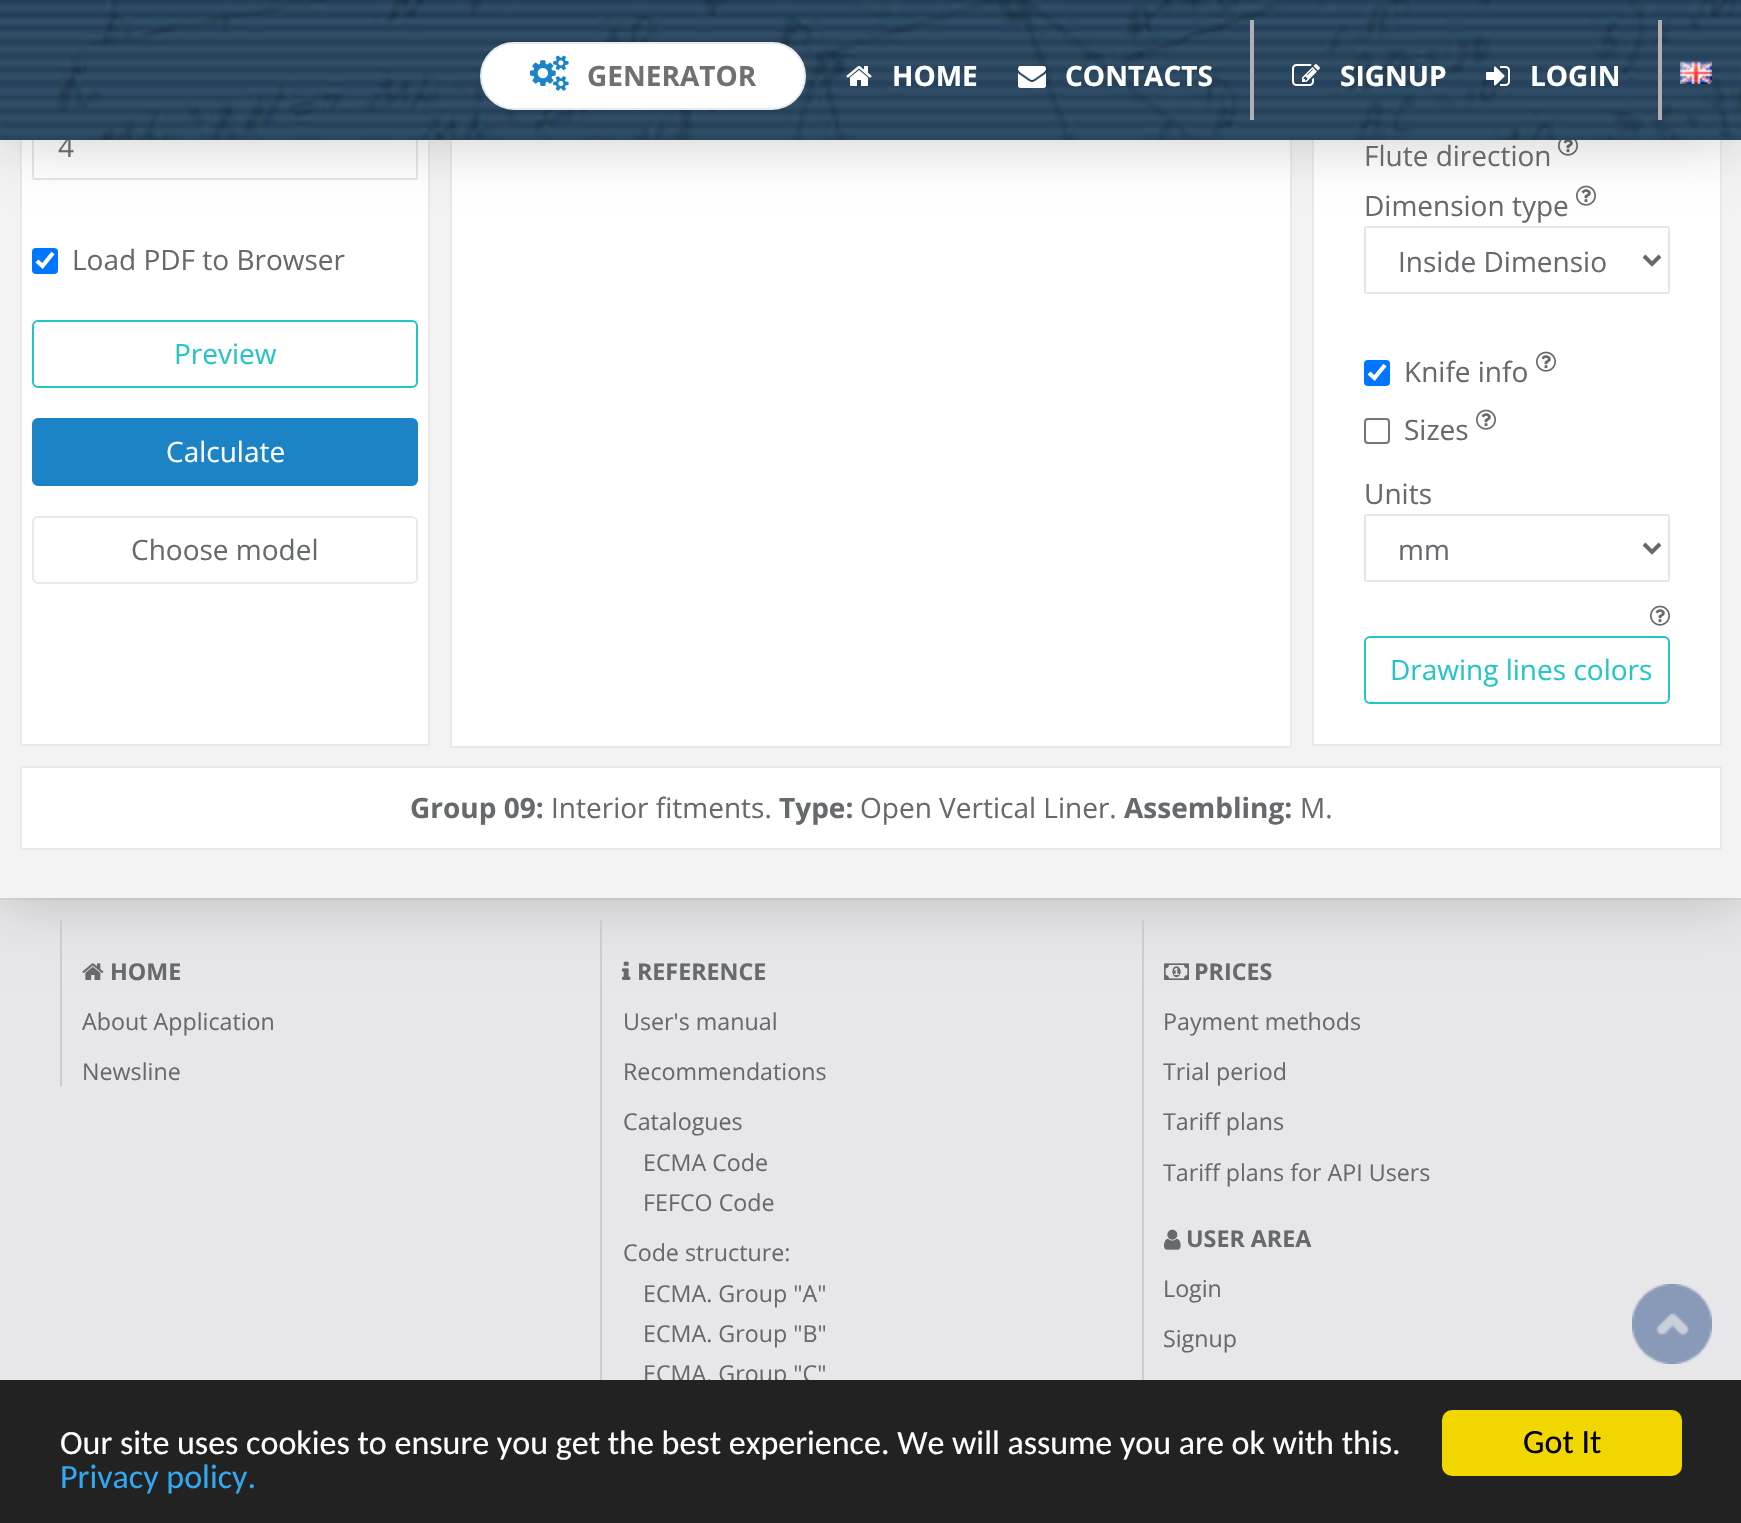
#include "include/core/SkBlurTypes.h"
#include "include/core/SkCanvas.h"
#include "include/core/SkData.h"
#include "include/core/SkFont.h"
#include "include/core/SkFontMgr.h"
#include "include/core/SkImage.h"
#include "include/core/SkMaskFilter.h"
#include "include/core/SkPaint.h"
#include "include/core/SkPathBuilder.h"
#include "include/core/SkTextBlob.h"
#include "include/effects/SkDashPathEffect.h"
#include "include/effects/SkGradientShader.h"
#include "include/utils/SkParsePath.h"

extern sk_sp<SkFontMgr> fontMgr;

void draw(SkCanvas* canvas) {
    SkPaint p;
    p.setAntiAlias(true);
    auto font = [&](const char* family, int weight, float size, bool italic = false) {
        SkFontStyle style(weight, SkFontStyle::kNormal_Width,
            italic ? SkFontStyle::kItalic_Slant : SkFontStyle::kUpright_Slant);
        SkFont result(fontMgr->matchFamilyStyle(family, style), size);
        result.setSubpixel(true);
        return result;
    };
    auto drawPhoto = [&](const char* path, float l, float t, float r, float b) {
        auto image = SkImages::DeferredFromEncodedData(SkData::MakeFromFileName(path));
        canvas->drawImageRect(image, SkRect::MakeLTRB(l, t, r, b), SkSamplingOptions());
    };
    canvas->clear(0xFFE7E7EA);
    p.setColor(0xFFDDDDDD);
    canvas->drawRect(SkRect::MakeLTRB(0, 898, 1741, 900), p);
    p.setColor(0x33000000);
    p.setMaskFilter(SkMaskFilter::MakeBlur(kNormal_SkBlurStyle, 30));
    canvas->drawRect(SkRect::MakeLTRB(0, -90, 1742, 898), p);
    p.setMaskFilter(nullptr);
    p.setColor(0xFFF3F3F4);
    canvas->drawRect(SkRect::MakeLTRB(0, 140, 1741, 898), p);
    p.setColor(0xFFFFFFFF);
    canvas->drawRect(SkRect::MakeLTRB(22, 140, 428, 744), p);
    p.setStyle(SkPaint::kStroke_Style);
    p.setStrokeWidth(2);
    p.setColor(0xFFEAEAEA);
    canvas->drawRect(SkRect::MakeLTRB(21, -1, 429, 745), p);
    p.setColor(0xFFE5E6E7);
    canvas->drawRoundRect(SkRect::MakeLTRB(33, 113, 417, 179), 1, 1, p);
    p.setStyle(SkPaint::kFill_Style);
    p.setColor(0xFFFFFFFF);
    canvas->drawRect(SkRect::MakeLTRB(452, 140, 1290, 746), p);
    p.setStyle(SkPaint::kStroke_Style);
    p.setColor(0xFFEAEAEA);
    canvas->drawRect(SkRect::MakeLTRB(451, -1, 1291, 747), p);
    p.setStyle(SkPaint::kFill_Style);
    p.setColor(0xFFFFFFFF);
    canvas->drawRect(SkRect::MakeLTRB(1314, 140, 1720, 744), p);
    p.setStyle(SkPaint::kStroke_Style);
    p.setColor(0xFFEAEAEA);
    canvas->drawRect(SkRect::MakeLTRB(1313, -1, 1721, 745), p);
    drawPhoto("media/8.png", 1558, 140, 1578, 156);
    drawPhoto("media/9.png", 1576, 185, 1596, 206);
    p.setColor(0xFFE5E6E7);
    canvas->drawRoundRect(SkRect::MakeLTRB(1365, 227, 1669, 293), 1, 1, p);
    p.setStyle(SkPaint::kFill_Style);
    p.setColor(0x33000000);
    p.setMaskFilter(SkMaskFilter::MakeBlur(kNormal_SkBlurStyle, 30));
    canvas->drawRect(SkRect::MakeLTRB(0, 0, 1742, 140), p);
    p.setMaskFilter(nullptr);
    auto font1 = font("Open Sans", 400, 28);
    p.setColor(0xFF676A6C);
    canvas->drawString("4", 58, 157, font1, p);
    drawPhoto("media/1.png", 0, 0, 1741, 140);
    p.setColor(0xFFFFFFFF);
    canvas->drawRoundRect(SkRect::MakeLTRB(481, 43, 805, 109), 33, 33, p);
    p.setStyle(SkPaint::kStroke_Style);
    p.setColor(0xFFE7EAEC);
    canvas->drawRoundRect(SkRect::MakeLTRB(481, 43, 805, 109), 33, 33, p);
    drawPhoto("media/2.png", 530, 55, 569, 91);
    auto font2 = font("Open Sans", 700, 28);
    p.setStyle(SkPaint::kFill_Style);
    p.setColor(0xFF707070);
    canvas->drawString("GENERATOR", 587, 86, font2, p);
    drawPhoto("media/3.png", 846, 66, 872, 86);
    p.setColor(0xFFFFFFFF);
    canvas->drawString("HOME", 892, 86, font2, p);
    drawPhoto("media/4.png", 1018, 66, 1046, 88);
    canvas->drawString("CONTACTS", 1065, 86, font2, p);
    p.setColor(0xFFB0B0B0);
    canvas->drawRect(SkRect::MakeLTRB(1250, 20, 1254, 120), p);
    drawPhoto("media/5.png", 1292, 64, 1320, 86);
    p.setColor(0xFFFFFFFF);
    canvas->drawString("SIGNUP", 1340, 86, font2, p);
    drawPhoto("media/6.png", 1486, 66, 1510, 86);
    canvas->drawString("LOGIN", 1530, 86, font2, p);
    p.setColor(0xFFB0B0B0);
    canvas->drawRect(SkRect::MakeLTRB(1658, 20, 1662, 120), p);
    drawPhoto("media/7.png", 1680, 61, 1712, 84);
    p.setColor(0xFF0075FF);
    canvas->drawRoundRect(SkRect::MakeLTRB(32, 248, 58, 274), 4, 4, p);
    p.setStyle(SkPaint::kStroke_Style);
    p.setStrokeWidth(4.2f);
    p.setColor(0xFFFFFFFF);
    canvas->drawPath(SkPathBuilder().moveTo(37, 261).lineTo(42.5f, 266).lineTo(53, 253).detach(), p);
    p.setStyle(SkPaint::kFill_Style);
    p.setColor(0xFF676A6C);
    canvas->drawString("Load PDF to Browser", 72, 270, font1, p);
    p.setStyle(SkPaint::kStroke_Style);
    p.setStrokeWidth(2);
    p.setColor(0xFF23C6C8);
    canvas->drawRoundRect(SkRect::MakeLTRB(33, 321, 417, 387), 5, 5, p);
    p.setStyle(SkPaint::kFill_Style);
    canvas->drawString("Preview", 174, 364, font1, p);
    p.setColor(0xFF1C84C6);
    canvas->drawRoundRect(SkRect::MakeLTRB(33, 419, 417, 485), 5, 5, p);
    p.setStyle(SkPaint::kStroke_Style);
    canvas->drawRoundRect(SkRect::MakeLTRB(33, 419, 417, 485), 5, 5, p);
    p.setStyle(SkPaint::kFill_Style);
    p.setColor(0xFFFFFFFF);
    canvas->drawString("Calculate", 166, 462, font1, p);
    p.setStyle(SkPaint::kStroke_Style);
    p.setColor(0xFFE7EAEC);
    canvas->drawRoundRect(SkRect::MakeLTRB(33, 517, 417, 583), 5, 5, p);
    p.setStyle(SkPaint::kFill_Style);
    p.setColor(0xFF676A6C);
    {
        const struct { const char* s; float x, y; } items[] = {
            {"Choose model", 131, 560},
            {"Flute direction", 1364, 166},
            {"Dimension type", 1364, 216},
        };
        for (auto [s, x, y] : items) {
            canvas->drawString(s, x, y, font1, p);
        }
    }
    p.setStyle(SkPaint::kStroke_Style);
    p.setStrokeWidth(4);
    canvas->drawPath(SkPathBuilder().moveTo(1644, 256).lineTo(1652, 264).lineTo(1660, 256).detach(), p);
    p.setStyle(SkPaint::kFill_Style);
    canvas->drawString("Inside Dimensio", 1398, 272, font1, p);
    p.setColor(0xFF0075FF);
    canvas->drawRoundRect(SkRect::MakeLTRB(1364, 360, 1390, 386), 4, 4, p);
    p.setStyle(SkPaint::kStroke_Style);
    p.setStrokeWidth(4.2f);
    p.setColor(0xFFFFFFFF);
    canvas->drawPath(SkPathBuilder().moveTo(1369, 373).lineTo(1374.5f, 378).lineTo(1385, 365).detach(), p);
    p.setStyle(SkPaint::kFill_Style);
    p.setColor(0xFF676A6C);
    canvas->drawString("Knife info", 1404, 382, font1, p);
    drawPhoto("media/9.png", 1536, 351, 1556, 372);
    p.setStyle(SkPaint::kStroke_Style);
    p.setStrokeWidth(2);
    p.setColor(0xFF767676);
    canvas->drawRoundRect(SkRect::MakeLTRB(1365, 419, 1389, 443), 3, 3, p);
    p.setStyle(SkPaint::kFill_Style);
    p.setColor(0xFF676A6C);
    canvas->drawString("Sizes", 1404, 440, font1, p);
    drawPhoto("media/9.png", 1476, 409, 1496, 430);
    canvas->drawString("Units", 1364, 504, font1, p);
    p.setStyle(SkPaint::kStroke_Style);
    p.setColor(0xFFE5E6E7);
    canvas->drawRoundRect(SkRect::MakeLTRB(1365, 515, 1669, 581), 1, 1, p);
    p.setStrokeWidth(4);
    p.setColor(0xFF676A6C);
    canvas->drawPath(SkPathBuilder().moveTo(1644, 544).lineTo(1652, 552).lineTo(1660, 544).detach(), p);
    p.setStyle(SkPaint::kFill_Style);
    canvas->drawString("mm", 1398, 560, font1, p);
    drawPhoto("media/9.png", 1650, 605, 1670, 626);
    p.setStyle(SkPaint::kStroke_Style);
    p.setStrokeWidth(2);
    p.setColor(0xFF23C6C8);
    canvas->drawRoundRect(SkRect::MakeLTRB(1365, 637, 1669, 703), 5, 5, p);
    p.setStyle(SkPaint::kFill_Style);
    canvas->drawString("Drawing lines colors", 1390, 680, font1, p);
    p.setColor(0xFFFFFFFF);
    canvas->drawRect(SkRect::MakeLTRB(21, 767, 1721, 849), p);
    p.setStyle(SkPaint::kStroke_Style);
    p.setColor(0xFFEAEAEA);
    canvas->drawRect(SkRect::MakeLTRB(21, 767, 1721, 849), p);
    p.setStyle(SkPaint::kFill_Style);
    p.setColor(0xFF676A6C);
    canvas->drawString("Group 09:", 410, 818, font2, p);
    canvas->drawString("Interior fitments.", 551, 818, font1, p);
    canvas->drawString("Type:", 779, 818, font2, p);
    canvas->drawString("Open Vertical Liner.", 860, 818, font1, p);
    canvas->drawString("Assembling:", 1124, 818, font2, p);
    canvas->drawString("M.", 1300, 818, font1, p);
    p.setColor(0xFFCCCCCC);
    canvas->drawRect(SkRect::MakeLTRB(60, 920, 62, 1086), p);
    drawPhoto("media/10.png", 82, 963, 104, 980);
    auto font3 = font("Open Sans", 700, 23.25f);
    p.setColor(0xFF676A6C);
    canvas->drawString("HOME", 110, 980, font3, p);
    auto font4 = font("Open Sans", 400, 23.25f);
    canvas->drawString("About Application", 82, 1030, font4, p);
    canvas->drawString("Newsline", 82, 1080, font4, p);
    p.setColor(0xFFCCCCCC);
    canvas->drawRect(SkRect::MakeLTRB(600, 920, 602, 1380), p);
    drawPhoto("media/11.png", 622, 961, 631, 980);
    p.setColor(0xFF676A6C);
    canvas->drawString("REFERENCE", 637, 980, font3, p);
    {
        const struct { const char* s; float x, y; } items[] = {
            {"User's manual", 623, 1030},
            {"Recommendations", 623, 1080},
            {"Catalogues", 623, 1130},
            {"ECMA Code", 643, 1171},
            {"FEFCO Code", 643, 1211},
            {"Code structure:", 623, 1261},
            {"ECMA. Group \"A\"", 643, 1302},
            {"ECMA. Group \"B\"", 643, 1342},
            {"ECMA. Group \"C\"", 643, 1382},
        };
        for (auto [s, x, y] : items) {
            canvas->drawString(s, x, y, font4, p);
        }
    }
    p.setColor(0xFFCCCCCC);
    canvas->drawRect(SkRect::MakeLTRB(1142, 920, 1144, 1380), p);
    drawPhoto("media/12.png", 1164, 963, 1189, 980);
    p.setColor(0xFF676A6C);
    canvas->drawString("PRICES", 1194, 980, font3, p);
    {
        const struct { const char* s; float x, y; } items[] = {
            {"Payment methods", 1163, 1030},
            {"Trial period", 1163, 1080},
            {"Tariff plans", 1163, 1130},
            {"Tariff plans for API Users", 1163, 1181},
        };
        for (auto [s, x, y] : items) {
            canvas->drawString(s, x, y, font4, p);
        }
    }
    drawPhoto("media/13.png", 1164, 1229, 1181, 1250);
    canvas->drawString("USER AREA", 1186, 1247, font3, p);
    canvas->drawString("Login", 1163, 1297, font4, p);
    canvas->drawString("Signup", 1163, 1347, font4, p);
    drawPhoto("media/14.png", 1632, 1284, 1712, 1364);
    p.setColor(0xFF222222);
    canvas->drawRect(SkRect::MakeLTRB(0, 1380, 1741, 1523), p);
    auto font5 = font("Carlito", 400, 34);
    p.setColor(0xFFFFFFFF);
    canvas->drawString("Our site uses cookies to ensure you get the best experience. We will assume you are ok with this.", 60, 1454, font5, p);
    p.setColor(0xFF31A8F0);
    canvas->drawString("Privacy policy.", 60, 1488, font5, p);
    p.setColor(0xFFF1D600);
    canvas->drawRoundRect(SkRect::MakeLTRB(1442, 1410, 1682, 1476), 10, 10, p);
    p.setColor(0xFF000000);
    canvas->drawString("Got It", 1523, 1453, font5, p);
}
